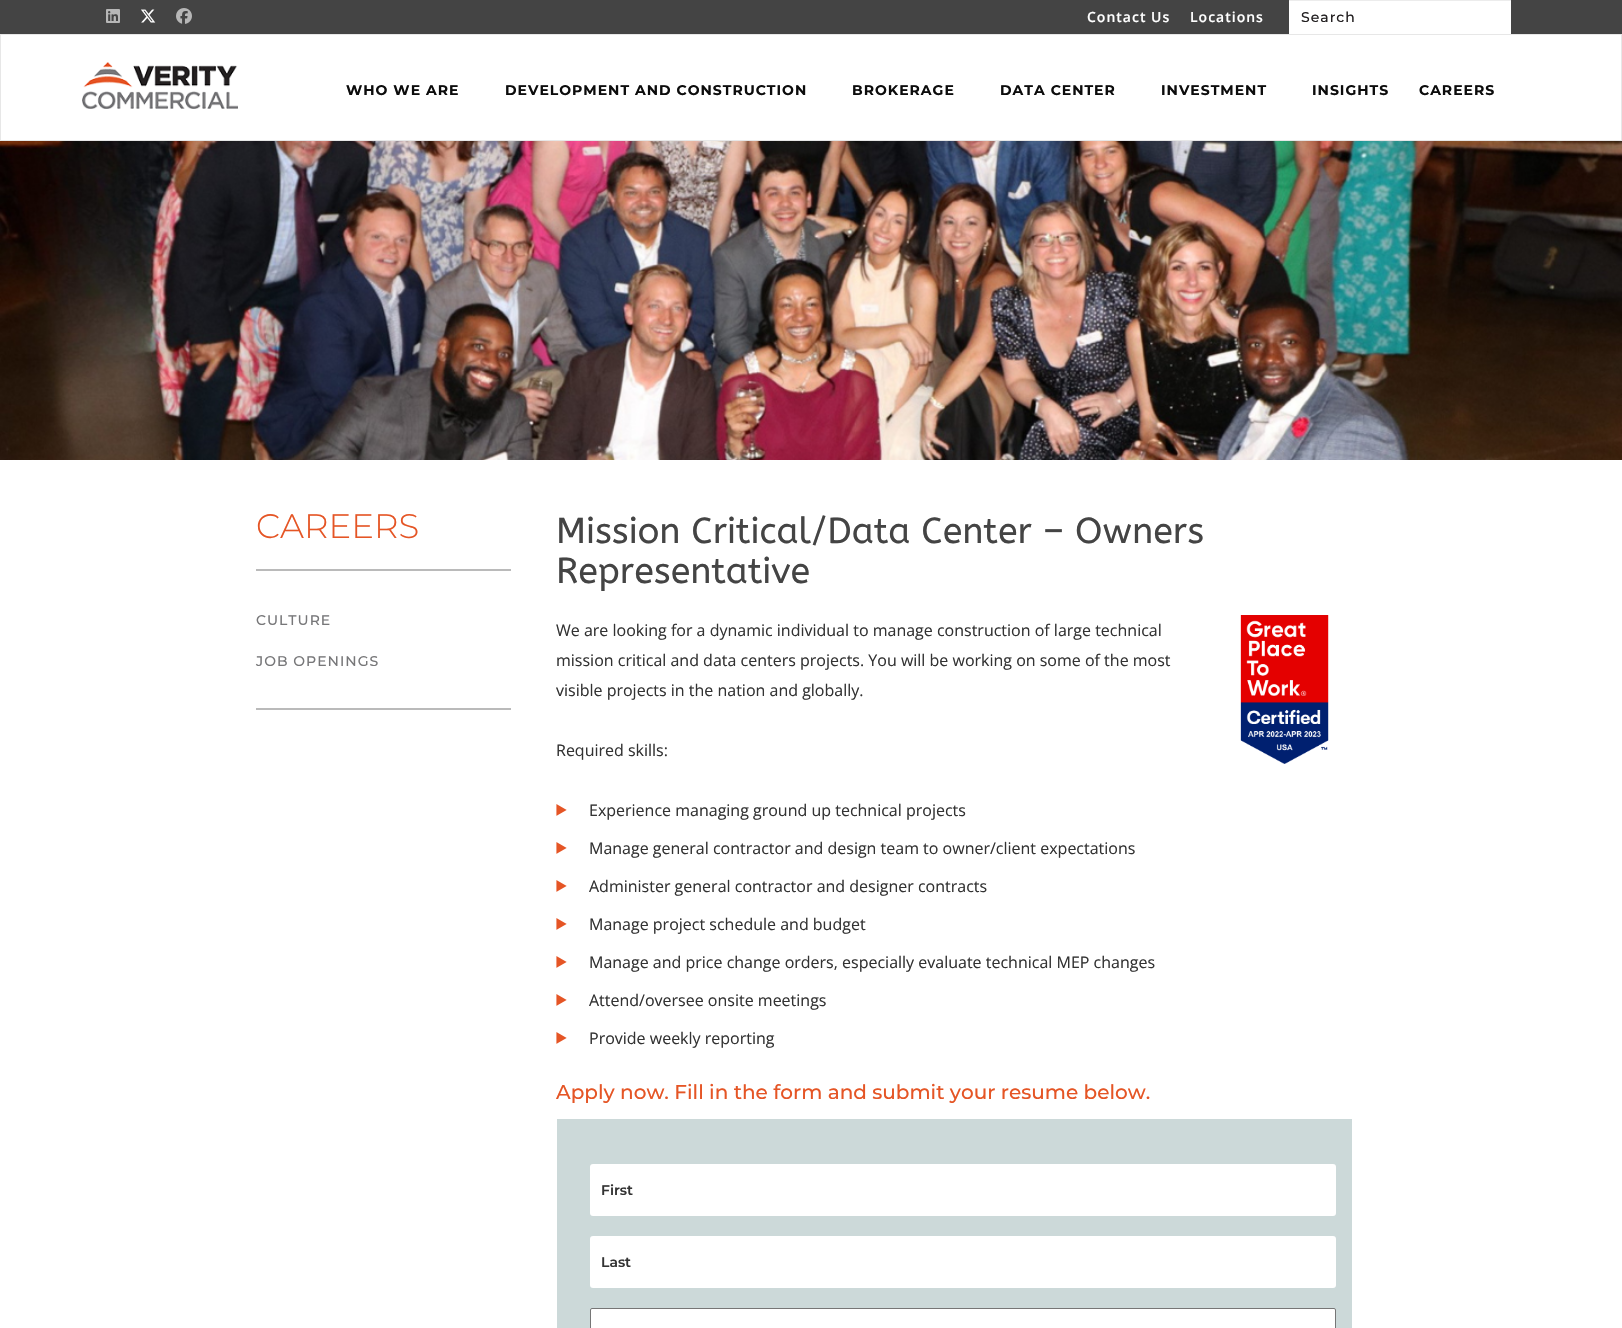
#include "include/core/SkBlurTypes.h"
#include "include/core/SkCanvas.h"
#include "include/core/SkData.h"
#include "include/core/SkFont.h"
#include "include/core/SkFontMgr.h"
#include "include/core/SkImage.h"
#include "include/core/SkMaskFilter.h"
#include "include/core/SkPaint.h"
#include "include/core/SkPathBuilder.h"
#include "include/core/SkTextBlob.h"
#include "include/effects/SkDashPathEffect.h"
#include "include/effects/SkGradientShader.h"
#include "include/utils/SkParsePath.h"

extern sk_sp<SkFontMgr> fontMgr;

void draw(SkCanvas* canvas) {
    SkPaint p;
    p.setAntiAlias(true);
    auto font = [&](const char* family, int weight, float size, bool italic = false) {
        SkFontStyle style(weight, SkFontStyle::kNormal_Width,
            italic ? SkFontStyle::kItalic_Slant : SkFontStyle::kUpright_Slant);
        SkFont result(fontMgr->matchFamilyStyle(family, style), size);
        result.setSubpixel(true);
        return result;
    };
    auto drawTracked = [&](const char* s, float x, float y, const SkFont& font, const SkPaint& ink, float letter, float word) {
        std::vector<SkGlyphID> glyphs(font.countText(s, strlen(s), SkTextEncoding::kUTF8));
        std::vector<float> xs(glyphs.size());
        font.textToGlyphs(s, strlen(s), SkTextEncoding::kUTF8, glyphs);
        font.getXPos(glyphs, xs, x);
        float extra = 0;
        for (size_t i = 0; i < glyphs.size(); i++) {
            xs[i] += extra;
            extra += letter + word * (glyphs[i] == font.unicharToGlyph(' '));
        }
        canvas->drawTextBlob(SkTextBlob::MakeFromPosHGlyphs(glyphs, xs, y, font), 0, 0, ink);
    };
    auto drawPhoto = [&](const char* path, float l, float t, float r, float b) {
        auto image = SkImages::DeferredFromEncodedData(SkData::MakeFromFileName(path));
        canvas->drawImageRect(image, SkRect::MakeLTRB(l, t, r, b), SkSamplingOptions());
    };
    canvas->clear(0xFFFFFFFF);
    p.setColor(0xFF444444);
    canvas->drawRect(SkRect::MakeLTRB(0, 0, 1622, 34), p);
    drawPhoto("media/1.png", 106, 9, 120, 23);
    drawPhoto("media/2.png", 141, 9, 156, 23);
    drawPhoto("media/3.png", 176, 8, 192, 24);
    auto font1 = font("Open Sans", 600, 14);
    p.setColor(0xFFFFFFFF);
    drawTracked("Contact Us", 1087, 22, font1, p, 1, 0);
    drawTracked("Locations", 1190, 22, font1, p, 1, 0);
    canvas->drawRect(SkRect::MakeLTRB(1289, 1, 1511, 34), p);
    p.setColor(0xFFECECEC);
    canvas->drawRect(SkRect::MakeLTRB(1289, 0, 1511, 1), p);
    auto font2 = font("Montserrat", 500, 14);
    p.setColor(0xFF232021);
    drawTracked("Search", 1301, 22, font2, p, 1, 0);
    p.setStyle(SkPaint::kStroke_Style);
    p.setStrokeWidth(1);
    p.setColor(0xFFE7E7E7);
    canvas->drawRect(SkRect::MakeLTRB(0.5f, 34.5f, 1621.5f, 140.5f), p);
    drawPhoto("media/4.png", 82, 62, 238, 109);
    auto font3 = font("Montserrat", 700, 14);
    p.setStyle(SkPaint::kFill_Style);
    p.setColor(0xFF0C0C0C);
    {
        const struct { const char* s; float x, y; } items[] = {
            {"WHO WE ARE", 346, 95},
            {"DEVELOPMENT AND CONSTRUCTION", 505, 95},
            {"BROKERAGE", 852, 95},
            {"DATA CENTER", 1000, 95},
            {"INVESTMENT", 1161, 95},
            {"INSIGHTS", 1312, 95},
            {"CAREERS", 1419, 95},
        };
        for (auto [s, x, y] : items) {
            drawTracked(s, x, y, font3, p, 1, 0);
        }
    }
    drawPhoto("media/5.png", 0, 141, 1622, 460);
    auto font4 = font("Montserrat", 300, 34);
    p.setColor(0xFFE55525);
    canvas->drawString("CAREERS", 256, 538, font4, p);
    p.setColor(0xFFBABABA);
    canvas->drawRect(SkRect::MakeLTRB(256, 569, 511, 571), p);
    canvas->drawRect(SkRect::MakeLTRB(256, 708, 511, 710), p);
    p.setColor(0xFF777779);
    drawTracked("CULTURE", 256, 625, font2, p, 1, 0);
    drawTracked("JOB OPENINGS", 256, 666, font2, p, 1, 0);
    auto font5 = font("ABeeZee", 400, 36);
    p.setColor(0xFF444444);
    canvas->drawString("Mission Critical/Data Center – Owners", 556, 543, font5, p);
    canvas->drawString("Representative", 556, 583, font5, p);
    auto font6 = font("Open Sans", 400, 16);
    p.setColor(0xFF333333);
    canvas->drawString("We are looking for a dynamic individual to manage construction of large technical", 556, 636, font6, p);
    drawPhoto("media/6.png", 1240, 615, 1329, 764);
    {
        const struct { const char* s; float x, y; } items[] = {
            {"mission critical and data centers projects. You will be working on some of the most", 556, 666},
            {"visible projects in the nation and globally.", 556, 696},
            {"Required skills:", 556, 756},
        };
        for (auto [s, x, y] : items) {
            canvas->drawString(s, x, y, font6, p);
        }
    }
    drawPhoto("media/7.png", 556, 804, 567, 816);
    canvas->drawString("Experience managing ground up technical projects", 589, 816, font6, p);
    drawPhoto("media/7.png", 556, 842, 567, 854);
    canvas->drawString("Manage general contractor and design team to owner/client expectations", 589, 854, font6, p);
    drawPhoto("media/7.png", 556, 880, 567, 892);
    canvas->drawString("Administer general contractor and designer contracts", 589, 892, font6, p);
    drawPhoto("media/7.png", 556, 918, 567, 930);
    canvas->drawString("Manage project schedule and budget", 589, 930, font6, p);
    drawPhoto("media/7.png", 556, 956, 567, 968);
    canvas->drawString("Manage and price change orders, especially evaluate technical MEP changes", 589, 968, font6, p);
    drawPhoto("media/7.png", 556, 994, 567, 1006);
    canvas->drawString("Attend/oversee onsite meetings", 589, 1006, font6, p);
    drawPhoto("media/7.png", 556, 1032, 567, 1044);
    canvas->drawString("Provide weekly reporting", 589, 1044, font6, p);
    auto font7 = font("Montserrat", 500, 20);
    p.setColor(0xFFE55525);
    canvas->drawString("Apply now. Fill in the form and submit your resume below.", 556, 1099, font7, p);
    p.setColor(0xFFCCD9D9);
    canvas->drawRect(SkRect::MakeLTRB(557, 1119, 1352, 1328), p);
    p.setColor(0xFFFFFFFF);
    canvas->drawRoundRect(SkRect::MakeLTRB(590, 1164, 1336, 1216), 3, 3, p);
    auto font8 = font("Montserrat", 600, 14);
    p.setColor(0xFF333333);
    canvas->drawString("First", 601, 1195, font8, p);
    p.setColor(0xFFFFFFFF);
    canvas->drawRoundRect(SkRect::MakeLTRB(590, 1236, 1336, 1288), 3, 3, p);
    p.setColor(0xFF333333);
    canvas->drawString("Last", 601, 1267, font8, p);
    p.setColor(0xFFFFFFFF);
    canvas->drawRoundRect(SkRect::MakeLTRB(590.5f, 1308.5f, 1335.5f, 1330.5f), 1.5f, 1.5f, p);
    p.setStyle(SkPaint::kStroke_Style);
    p.setColor(0xFF767676);
    canvas->drawRoundRect(SkRect::MakeLTRB(590.5f, 1308.5f, 1335.5f, 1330.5f), 1.5f, 1.5f, p);
}
